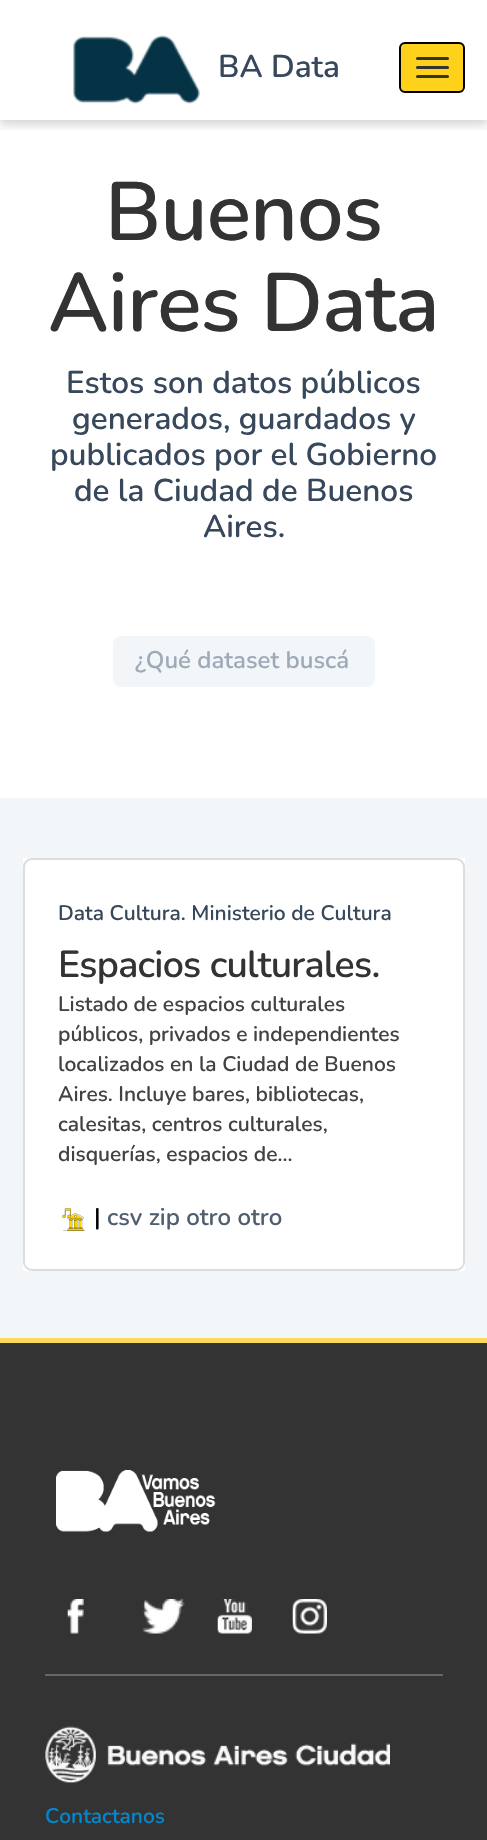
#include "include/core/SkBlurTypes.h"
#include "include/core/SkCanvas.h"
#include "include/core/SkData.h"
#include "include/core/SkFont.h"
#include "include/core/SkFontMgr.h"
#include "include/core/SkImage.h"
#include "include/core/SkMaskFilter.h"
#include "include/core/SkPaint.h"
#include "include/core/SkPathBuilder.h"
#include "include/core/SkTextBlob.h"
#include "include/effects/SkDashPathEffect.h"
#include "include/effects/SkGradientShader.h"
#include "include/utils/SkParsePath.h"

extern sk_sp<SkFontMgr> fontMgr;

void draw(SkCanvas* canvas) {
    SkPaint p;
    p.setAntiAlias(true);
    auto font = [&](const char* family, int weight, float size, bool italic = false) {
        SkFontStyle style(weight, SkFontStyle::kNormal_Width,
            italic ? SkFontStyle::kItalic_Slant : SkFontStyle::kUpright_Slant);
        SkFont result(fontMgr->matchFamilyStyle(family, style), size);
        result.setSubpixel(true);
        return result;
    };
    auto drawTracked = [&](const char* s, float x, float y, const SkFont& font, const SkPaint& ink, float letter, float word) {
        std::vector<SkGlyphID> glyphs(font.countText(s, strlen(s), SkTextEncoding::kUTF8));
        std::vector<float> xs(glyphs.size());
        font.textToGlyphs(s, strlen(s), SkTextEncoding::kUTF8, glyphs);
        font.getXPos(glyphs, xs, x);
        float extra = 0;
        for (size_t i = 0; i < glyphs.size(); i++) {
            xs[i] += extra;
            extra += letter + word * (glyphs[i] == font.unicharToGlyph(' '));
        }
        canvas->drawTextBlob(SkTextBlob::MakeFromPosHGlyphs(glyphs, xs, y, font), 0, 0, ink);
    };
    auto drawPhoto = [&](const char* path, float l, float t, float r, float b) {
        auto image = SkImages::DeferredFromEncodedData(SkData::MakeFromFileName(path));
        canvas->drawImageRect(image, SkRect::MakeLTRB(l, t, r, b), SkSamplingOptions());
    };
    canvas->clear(0xFFFFFFFF);
    canvas->save();
    canvas->clipRect(SkRect::MakeLTRB(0, 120, 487, 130));
    p.setColor(0x29000000);
    p.setMaskFilter(SkMaskFilter::MakeBlur(kNormal_SkBlurStyle, 4.5f));
    canvas->drawRect(SkRect::MakeLTRB(0, 5, 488, 125), p);
    p.setMaskFilter(nullptr);
    canvas->restore();
    drawPhoto("media/1.png", 73, 35, 200, 104);
    auto font1 = font("Nunito", 600, 31.5f);
    p.setColor(0xFF38485C);
    canvas->drawString("BA Data", 218, 77, font1, p);
    p.setColor(0xFFFED11A);
    canvas->drawRoundRect(SkRect::MakeLTRB(400, 43, 464, 92), 5, 5, p);
    p.setStyle(SkPaint::kStroke_Style);
    p.setStrokeWidth(2);
    p.setColor(0xFF000000);
    canvas->drawRoundRect(SkRect::MakeLTRB(400, 43, 464, 92), 5, 5, p);
    p.setStyle(SkPaint::kFill_Style);
    p.setColor(0xFF333333);
    canvas->drawRoundRect(SkRect::MakeLTRB(416, 57, 449, 60), 1.5f, 1.5f, p);
    canvas->drawRoundRect(SkRect::MakeLTRB(416, 66, 449, 69), 1.5f, 1.5f, p);
    canvas->drawRoundRect(SkRect::MakeLTRB(416, 75, 449, 78), 1.5f, 1.5f, p);
    auto font2 = font("Nunito", 600, 82.5f);
    drawTracked("Buenos", 105, 240, font2, p, -0.75f, 0);
    drawTracked("Aires Data", 48, 331, font2, p, -0.75f, 0);
    p.setColor(0xFF38485C);
    {
        const struct { const char* s; float x, y; } items[] = {
            {"Estos son datos públicos", 66, 393},
            {"generados, guardados y", 72, 429},
            {"publicados por el Gobierno", 50, 465},
            {"de la Ciudad de Buenos", 74, 501},
            {"Aires.", 203, 537},
        };
        for (auto [s, x, y] : items) {
            canvas->drawString(s, x, y, font1, p);
        }
    }
    p.setColor(0xFFF3F6F9);
    canvas->drawRoundRect(SkRect::MakeLTRB(113, 636, 375, 687), 8, 8, p);
    auto font3 = font("Nunito", 600, 24);
    p.setColor(0xFF9EAAB8);
    canvas->drawString("¿Qué dataset buscá", 135, 668, font3, p);
    p.setColor(0xFFF3F6F9);
    canvas->drawRect(SkRect::MakeLTRB(0, 798, 487, 1338), p);
    p.setColor(0xFFFFFFFF);
    canvas->drawRect(SkRect::MakeLTRB(23, 858, 465, 1271), p);
    p.setStyle(SkPaint::kStroke_Style);
    p.setColor(0xFFDDDDDD);
    canvas->drawRoundRect(SkRect::MakeLTRB(24, 859, 464, 1270), 8, 8, p);
    auto font4 = font("Nunito", 600, 21);
    p.setStyle(SkPaint::kFill_Style);
    p.setColor(0xFF38485C);
    canvas->drawString("Data Cultura. Ministerio de Cultura", 58, 920, font4, p);
    auto font5 = font("Nunito", 600, 37.5f);
    p.setColor(0xFF333333);
    drawTracked("Espacios culturales.", 58, 977, font5, p, -0.75f, 0);
    p.setColor(0xFF424242);
    {
        const struct { const char* s; float x, y; } items[] = {
            {"Listado de espacios culturales", 58, 1011},
            {"públicos, privados e independientes", 58, 1041},
            {"localizados en la Ciudad de Buenos", 58, 1071},
            {"Aires. Incluye bares, bibliotecas,", 58, 1101},
            {"calesitas, centros culturales,", 58, 1131},
            {"disquerías, espacios de...", 58, 1161},
        };
        for (auto [s, x, y] : items) {
            canvas->drawString(s, x, y, font4, p);
        }
    }
    drawPhoto("media/2.png", 62, 1208, 85, 1231);
    p.setColor(0xFF000000);
    canvas->drawString("|", 94, 1225, font3, p);
    p.setColor(0xFF505E70);
    canvas->drawString("csv zip otro otro", 107, 1225, font3, p);
    p.setColor(0xFF333333);
    canvas->drawRect(SkRect::MakeLTRB(0, 1343, 487, 1840), p);
    p.setColor(0xFFFCDA59);
    canvas->drawRect(SkRect::MakeLTRB(0, 1338, 487, 1343), p);
    drawPhoto("media/3.png", 56, 1470, 216, 1532);
    drawPhoto("media/4.png", 67, 1599, 84, 1634);
    drawPhoto("media/5.png", 142, 1599, 185, 1634);
    drawPhoto("media/6.png", 217, 1599, 252, 1634);
    drawPhoto("media/7.png", 292, 1599, 327, 1634);
    p.setColor(0xFF666666);
    canvas->drawRect(SkRect::MakeLTRB(45, 1674, 443, 1676), p);
    drawPhoto("media/8.png", 45, 1726, 390, 1783);
    p.setColor(0xFF0388D0);
    canvas->drawString("Contactanos", 45, 1823, font4, p);
}
